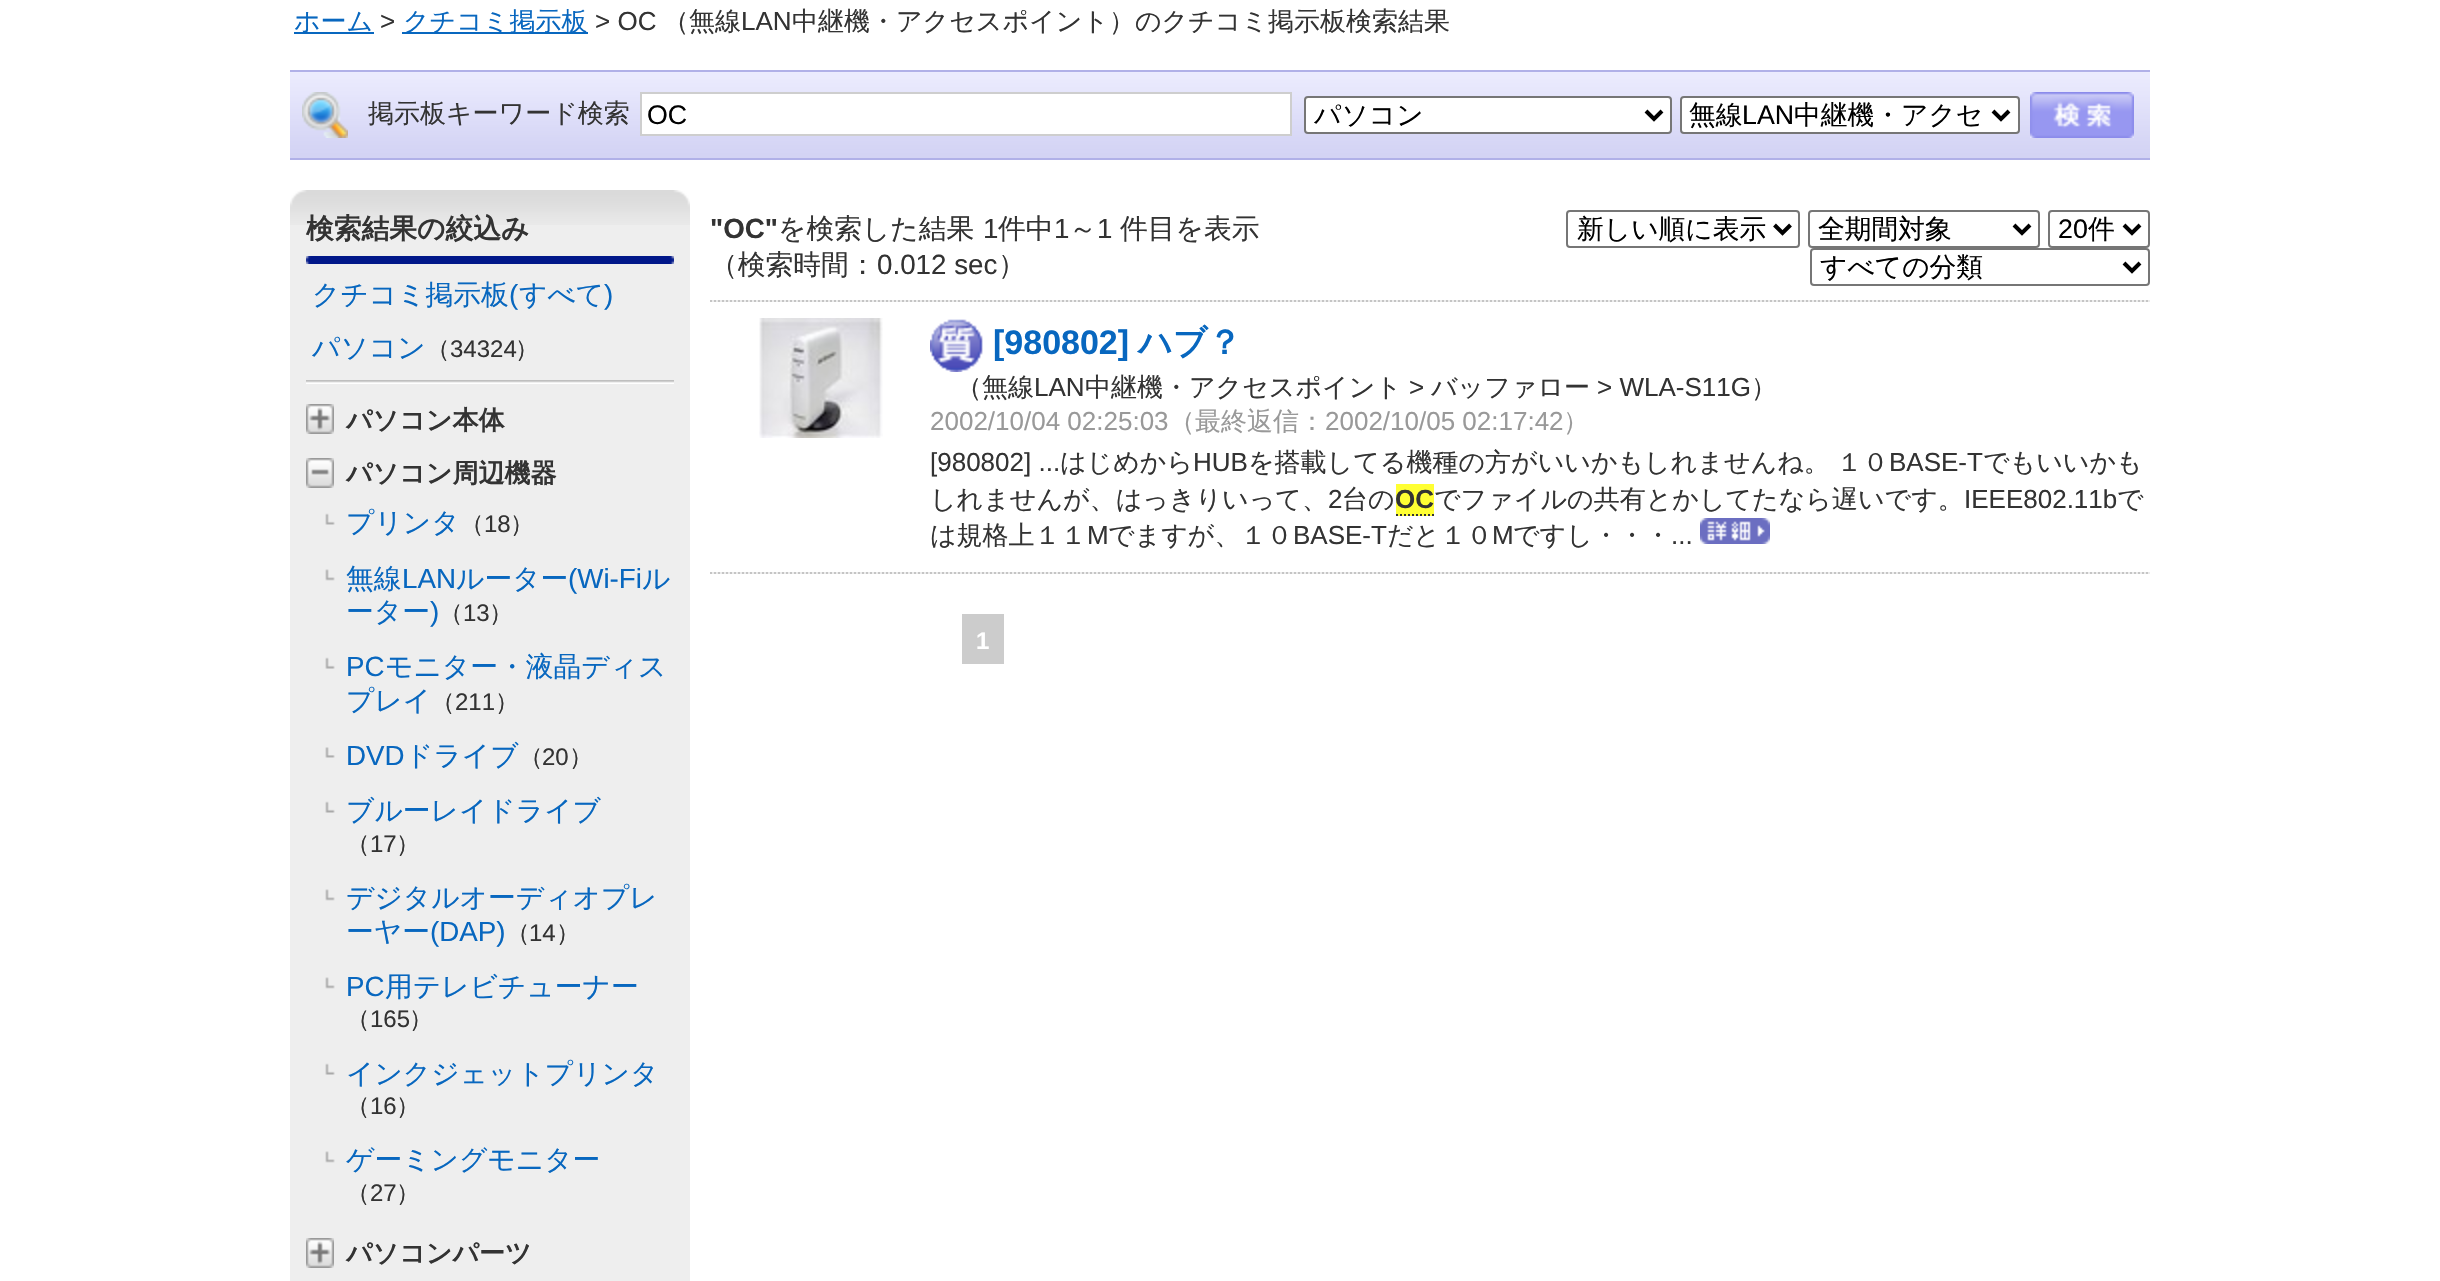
#include "include/core/SkBlurTypes.h"
#include "include/core/SkCanvas.h"
#include "include/core/SkData.h"
#include "include/core/SkFont.h"
#include "include/core/SkFontMgr.h"
#include "include/core/SkImage.h"
#include "include/core/SkMaskFilter.h"
#include "include/core/SkPaint.h"
#include "include/core/SkPathBuilder.h"
#include "include/core/SkTextBlob.h"
#include "include/effects/SkDashPathEffect.h"
#include "include/effects/SkGradientShader.h"
#include "include/utils/SkParsePath.h"

extern sk_sp<SkFontMgr> fontMgr;

void draw(SkCanvas* canvas) {
    SkPaint p;
    p.setAntiAlias(true);
    auto font = [&](const char* family, int weight, float size, bool italic = false) {
        SkFontStyle style(weight, SkFontStyle::kNormal_Width,
            italic ? SkFontStyle::kItalic_Slant : SkFontStyle::kUpright_Slant);
        SkFont result(fontMgr->matchFamilyStyle(family, style), size);
        result.setSubpixel(true);
        return result;
    };
    auto drawTracked = [&](const char* s, float x, float y, const SkFont& font, const SkPaint& ink, float letter, float word) {
        std::vector<SkGlyphID> glyphs(font.countText(s, strlen(s), SkTextEncoding::kUTF8));
        std::vector<float> xs(glyphs.size());
        font.textToGlyphs(s, strlen(s), SkTextEncoding::kUTF8, glyphs);
        font.getXPos(glyphs, xs, x);
        float extra = 0;
        for (size_t i = 0; i < glyphs.size(); i++) {
            xs[i] += extra;
            extra += letter + word * (glyphs[i] == font.unicharToGlyph(' '));
        }
        canvas->drawTextBlob(SkTextBlob::MakeFromPosHGlyphs(glyphs, xs, y, font), 0, 0, ink);
    };
    auto drawPhoto = [&](const char* path, float l, float t, float r, float b) {
        auto image = SkImages::DeferredFromEncodedData(SkData::MakeFromFileName(path));
        canvas->drawImageRect(image, SkRect::MakeLTRB(l, t, r, b), SkSamplingOptions());
    };
    canvas->clear(0xFFFFFFFF);
    p.setColor(0xFF0867BF);
    canvas->drawRect(SkRect::MakeLTRB(294, 32, 374, 34), p);
    auto font1 = font("WenQuanYi Zen Hei", 500, 26);
    canvas->drawString("ホーム", 294, 30, font1, p);
    auto font2 = font("Liberation Sans", 400, 26);
    p.setColor(0xFF333333);
    canvas->drawString(">", 380, 30, font2, p);
    p.setColor(0xFF0867BF);
    canvas->drawRect(SkRect::MakeLTRB(402, 32, 588, 34), p);
    canvas->drawString("クチコミ掲示板", 403, 30, font1, p);
    p.setColor(0xFF333333);
    canvas->drawString("> OC", 595, 30, font2, p);
    canvas->drawString("（無線", 663, 30, font1, p);
    canvas->drawString("LAN", 741, 30, font2, p);
    canvas->drawString("中継機・アクセスポイント）のクチコミ掲示板検索結果", 792, 30, font1, p);
    drawPhoto("media/1.png", 290, 72, 2150, 158);
    p.setColor(0xFFB0B0E8);
    canvas->drawRect(SkRect::MakeLTRB(290, 70, 2150, 72), p);
    canvas->drawRect(SkRect::MakeLTRB(290, 158, 2150, 160), p);
    drawPhoto("media/2.png", 302, 92, 348, 138);
    p.setColor(0xFF333333);
    canvas->drawString("掲示板キーワード検索", 368, 122, font1, p);
    p.setColor(0xFFFFFFFF);
    canvas->drawRect(SkRect::MakeLTRB(641, 93, 1291, 135), p);
    p.setStyle(SkPaint::kStroke_Style);
    p.setStrokeWidth(2);
    p.setColor(0xFFCECECE);
    canvas->drawRect(SkRect::MakeLTRB(641, 93, 1291, 135), p);
    auto font3 = font("Liberation Sans", 400, 26.75f);
    p.setStyle(SkPaint::kFill_Style);
    p.setColor(0xFF000000);
    canvas->drawString("OC", 647, 124, font3, p);
    p.setColor(0xFFFFFFFF);
    canvas->drawRoundRect(SkRect::MakeLTRB(1305, 97, 1671, 133), 3, 3, p);
    p.setStyle(SkPaint::kStroke_Style);
    p.setColor(0xFF767676);
    canvas->drawRoundRect(SkRect::MakeLTRB(1305, 97, 1671, 133), 3, 3, p);
    p.setStrokeWidth(4);
    p.setColor(0xFF000000);
    canvas->drawPath(SkPathBuilder().moveTo(1646, 111).lineTo(1654, 119).lineTo(1662, 111).detach(), p);
    auto font4 = font("WenQuanYi Zen Hei", 500, 26.75f);
    p.setStyle(SkPaint::kFill_Style);
    canvas->drawString("パソコン", 1314, 124, font4, p);
    p.setColor(0xFFFFFFFF);
    canvas->drawRoundRect(SkRect::MakeLTRB(1681, 97, 2019, 133), 3, 3, p);
    p.setStyle(SkPaint::kStroke_Style);
    p.setStrokeWidth(2);
    p.setColor(0xFF767676);
    canvas->drawRoundRect(SkRect::MakeLTRB(1681, 97, 2019, 133), 3, 3, p);
    p.setStrokeWidth(4);
    p.setColor(0xFF000000);
    canvas->drawPath(SkPathBuilder().moveTo(1993, 111).lineTo(2001, 119).lineTo(2009, 111).detach(), p);
    p.setStyle(SkPaint::kFill_Style);
    canvas->drawString("無線", 1689, 124, font4, p);
    canvas->drawString("LAN", 1742, 124, font3, p);
    canvas->drawString("中継機・アクセ", 1794, 124, font4, p);
    drawPhoto("media/3.png", 2030, 92, 2134, 138);
    p.setColor(0xFFEEEEEE);
    canvas->drawRect(SkRect::MakeLTRB(290, 225, 690, 1281), p);
    drawPhoto("media/4.png", 290, 190, 690, 225);
    drawPhoto("media/5.png", 306, 256, 674, 264);
    auto font5 = font("WenQuanYi Zen Hei", 700, 27.75f);
    p.setColor(0xFF333333);
    canvas->drawString("検索結果の絞込み", 306, 238, font5, p);
    auto font6 = font("WenQuanYi Zen Hei", 500, 27.75f);
    p.setColor(0xFF0867BF);
    canvas->drawString("クチコミ掲示板", 312, 304, font6, p);
    auto font7 = font("Liberation Sans", 400, 27.75f);
    canvas->drawString("(", 509, 304, font7, p);
    canvas->drawString("すべて", 519, 304, font6, p);
    canvas->drawString(")", 604, 304, font7, p);
    drawPhoto("media/6.png", 306, 380, 674, 384);
    canvas->drawString("パソコン", 312, 357, font6, p);
    auto font8 = font("WenQuanYi Zen Hei", 500, 24);
    p.setColor(0xFF333333);
    canvas->drawString("（", 426, 357, font8, p);
    auto font9 = font("Liberation Sans", 400, 24);
    canvas->drawString("34324", 450, 357, font9, p);
    canvas->drawString("）", 515, 357, font8, p);
    drawPhoto("media/7.png", 306, 404, 334, 434);
    auto font10 = font("WenQuanYi Zen Hei", 700, 26);
    canvas->drawString("パソコン本体", 346, 429, font10, p);
    drawPhoto("media/8.png", 306, 458, 334, 488);
    canvas->drawString("パソコン周辺機器", 346, 482, font10, p);
    drawPhoto("media/9.png", 325, 513, 335, 525);
    p.setColor(0xFF0867BF);
    canvas->drawString("プリンタ", 346, 532, font6, p);
    p.setColor(0xFF333333);
    canvas->drawString("（", 460, 532, font8, p);
    canvas->drawString("18", 484, 532, font9, p);
    canvas->drawString("）", 510, 532, font8, p);
    drawPhoto("media/10.png", 325, 569, 335, 581);
    p.setColor(0xFF0867BF);
    canvas->drawString("無線", 346, 588, font6, p);
    canvas->drawString("LAN", 402, 588, font7, p);
    canvas->drawString("ルーター", 456, 588, font6, p);
    canvas->drawString("(Wi-Fi", 568, 588, font7, p);
    canvas->drawString("ル", 642, 588, font6, p);
    canvas->drawString("ーター", 346, 621, font6, p);
    canvas->drawString(")", 430, 621, font7, p);
    p.setColor(0xFF333333);
    canvas->drawString("（", 439, 621, font8, p);
    canvas->drawString("13", 463, 621, font9, p);
    canvas->drawString("）", 489, 621, font8, p);
    drawPhoto("media/11.png", 325, 657, 335, 669);
    p.setColor(0xFF0867BF);
    canvas->drawString("PC", 346, 676, font7, p);
    canvas->drawString("モニター・液晶ディス", 385, 676, font6, p);
    canvas->drawString("プレイ", 346, 710, font6, p);
    p.setColor(0xFF333333);
    canvas->drawString("（", 431, 710, font8, p);
    canvas->drawString("211", 455, 710, font9, p);
    canvas->drawString("）", 495, 710, font8, p);
    drawPhoto("media/12.png", 325, 747, 335, 758);
    p.setColor(0xFF0867BF);
    canvas->drawString("DVD", 346, 765, font7, p);
    canvas->drawString("ドライブ", 405, 765, font6, p);
    p.setColor(0xFF333333);
    canvas->drawString("（", 519, 765, font8, p);
    canvas->drawString("20", 542, 765, font9, p);
    canvas->drawString("）", 569, 765, font8, p);
    drawPhoto("media/13.png", 325, 801, 335, 813);
    p.setColor(0xFF0867BF);
    canvas->drawString("ブルーレイドライブ", 346, 820, font6, p);
    p.setColor(0xFF333333);
    canvas->drawString("（", 346, 852, font8, p);
    canvas->drawString("17", 370, 852, font9, p);
    canvas->drawString("）", 396, 852, font8, p);
    drawPhoto("media/10.png", 325, 889, 335, 901);
    p.setColor(0xFF0867BF);
    canvas->drawString("デジタルオーディオプレ", 346, 907, font6, p);
    canvas->drawString("ーヤー", 346, 941, font6, p);
    canvas->drawString("(DAP)", 430, 941, font7, p);
    p.setColor(0xFF333333);
    canvas->drawString("（", 506, 941, font8, p);
    canvas->drawString("14", 529, 941, font9, p);
    canvas->drawString("）", 556, 941, font8, p);
    drawPhoto("media/10.png", 325, 977, 335, 989);
    p.setColor(0xFF0867BF);
    canvas->drawString("PC", 346, 996, font7, p);
    canvas->drawString("用テレビチューナー", 385, 996, font6, p);
    p.setColor(0xFF333333);
    canvas->drawString("（", 346, 1027, font8, p);
    canvas->drawString("165", 370, 1027, font9, p);
    canvas->drawString("）", 409, 1027, font8, p);
    drawPhoto("media/13.png", 325, 1063, 335, 1075);
    p.setColor(0xFF0867BF);
    canvas->drawString("インクジェットプリンタ", 346, 1083, font6, p);
    p.setColor(0xFF333333);
    canvas->drawString("（", 346, 1114, font8, p);
    canvas->drawString("16", 370, 1114, font9, p);
    canvas->drawString("）", 396, 1114, font8, p);
    drawPhoto("media/10.png", 325, 1151, 335, 1163);
    p.setColor(0xFF0867BF);
    canvas->drawString("ゲーミングモニター", 346, 1169, font6, p);
    p.setColor(0xFF333333);
    canvas->drawString("（", 346, 1201, font8, p);
    canvas->drawString("27", 370, 1201, font9, p);
    canvas->drawString("）", 396, 1201, font8, p);
    drawPhoto("media/7.png", 306, 1238, 334, 1268);
    canvas->drawString("パソコンパーツ", 346, 1262, font10, p);
    drawPhoto("media/14.png", 710, 300, 2150, 302);
    auto font11 = font("Liberation Sans", 700, 27.75f);
    canvas->drawString("\"OC\"", 710, 238, font11, p);
    canvas->drawString("を検索した結果", 778, 238, font6, p);
    canvas->drawString("1", 983, 238, font7, p);
    canvas->drawString("件中", 998, 238, font6, p);
    canvas->drawString("1", 1054, 238, font7, p);
    canvas->drawString("～", 1069, 238, font6, p);
    canvas->drawString("1", 1097, 238, font7, p);
    canvas->drawString("件目を表示", 1120, 238, font6, p);
    canvas->drawString("（検索時間：", 710, 274, font6, p);
    canvas->drawString("0.012 sec", 877, 274, font7, p);
    canvas->drawString("）", 998, 274, font6, p);
    p.setStyle(SkPaint::kStroke_Style);
    p.setStrokeWidth(2);
    p.setColor(0xFF767676);
    canvas->drawRoundRect(SkRect::MakeLTRB(1567, 211, 1799, 247), 3, 3, p);
    p.setStrokeWidth(4);
    p.setColor(0xFF000000);
    canvas->drawPath(SkPathBuilder().moveTo(1774.5f, 225).lineTo(1782.5f, 233).lineTo(1790.5f, 225).detach(), p);
    p.setStyle(SkPaint::kFill_Style);
    canvas->drawString("新しい順に表示", 1577, 238, font4, p);
    p.setStyle(SkPaint::kStroke_Style);
    p.setStrokeWidth(2);
    p.setColor(0xFF767676);
    canvas->drawRoundRect(SkRect::MakeLTRB(1809, 211, 2039, 247), 3, 3, p);
    p.setStrokeWidth(4);
    p.setColor(0xFF000000);
    canvas->drawPath(SkPathBuilder().moveTo(2014, 225).lineTo(2022, 233).lineTo(2030, 225).detach(), p);
    p.setStyle(SkPaint::kFill_Style);
    canvas->drawString("全期間対象", 1818, 238, font4, p);
    p.setStyle(SkPaint::kStroke_Style);
    p.setStrokeWidth(2);
    p.setColor(0xFF767676);
    canvas->drawRoundRect(SkRect::MakeLTRB(2049, 211, 2149, 247), 3, 3, p);
    p.setStrokeWidth(4);
    p.setColor(0xFF000000);
    canvas->drawPath(SkPathBuilder().moveTo(2124, 225).lineTo(2132, 233).lineTo(2140, 225).detach(), p);
    p.setStyle(SkPaint::kFill_Style);
    canvas->drawString("20", 2058, 238, font3, p);
    canvas->drawString("件", 2088, 238, font4, p);
    p.setStyle(SkPaint::kStroke_Style);
    p.setStrokeWidth(2);
    p.setColor(0xFF767676);
    canvas->drawRoundRect(SkRect::MakeLTRB(1811, 249, 2149, 285), 3, 3, p);
    p.setStrokeWidth(4);
    p.setColor(0xFF000000);
    canvas->drawPath(SkPathBuilder().moveTo(2124, 263).lineTo(2132, 271).lineTo(2140, 263).detach(), p);
    p.setStyle(SkPaint::kFill_Style);
    canvas->drawString("すべての分類", 1820, 276, font4, p);
    drawPhoto("media/14.png", 710, 572, 2150, 574);
    drawPhoto("media/15.png", 759, 318, 883, 438);
    drawPhoto("media/16.png", 930, 319, 983, 372);
    auto font12 = font("Liberation Sans", 700, 34);
    p.setColor(0xFF0867BF);
    canvas->drawString("[980802]", 993, 354, font12, p);
    auto font13 = font("WenQuanYi Zen Hei", 700, 34);
    canvas->drawString("ハブ？", 1138, 354, font13, p);
    p.setColor(0xFF333333);
    canvas->drawString("（無線", 956, 396, font1, p);
    canvas->drawString("LAN", 1034, 396, font2, p);
    canvas->drawString("中継機・アクセスポイント", 1085, 396, font1, p);
    canvas->drawString(">", 1409, 396, font2, p);
    canvas->drawString("バッファロー", 1431, 396, font1, p);
    canvas->drawString("> WLA-S11G", 1597, 396, font2, p);
    canvas->drawString("）", 1751, 396, font1, p);
    p.setColor(0xFF999999);
    canvas->drawString("2002/10/04 02:25:03", 930, 430, font2, p);
    canvas->drawString("（最終返信：", 1169, 430, font1, p);
    canvas->drawString("2002/10/05 02:17:42", 1325, 430, font2, p);
    canvas->drawString("）", 1563, 430, font1, p);
    p.setColor(0xFF333333);
    canvas->drawString("[980802] ...", 930, 471, font2, p);
    canvas->drawString("はじめから", 1060, 471, font1, p);
    canvas->drawString("HUB", 1193, 471, font2, p);
    drawTracked("を搭載してる機種の方がいいかもしれませんね。 １０", 1248, 471, font1, p, 0, -1);
    canvas->drawString("BASE-T", 1889, 471, font2, p);
    canvas->drawString("でもいいかも", 1983, 471, font1, p);
    canvas->drawString("しれませんが、はっきりいって、", 930, 508, font1, p);
    canvas->drawString("2", 1328, 508, font2, p);
    canvas->drawString("台の", 1342, 508, font1, p);
    p.setColor(0xFFFFFF33);
    canvas->drawRect(SkRect::MakeLTRB(1396, 484, 1434, 516), p);
    auto font14 = font("Liberation Sans", 700, 26);
    p.setColor(0xFF333333);
    canvas->drawString("OC", 1395, 508, font14, p);
    p.setStyle(SkPaint::kStroke_Style);
    p.setStrokeWidth(2);
    p.setPathEffect(SkDashPathEffect::Make({{2, 2}}, 0));
    canvas->drawPath(SkPathBuilder().moveTo(1396, 515).lineTo(1434, 515).detach(), p);
    p.setPathEffect(nullptr);
    p.setStyle(SkPaint::kFill_Style);
    canvas->drawString("でファイルの共有とかしてたなら遅いです。", 1434, 508, font1, p);
    canvas->drawString("IEEE802.11b", 1964, 508, font2, p);
    canvas->drawString("で", 2117, 508, font1, p);
    canvas->drawString("は規格上１１", 930, 544, font1, p);
    canvas->drawString("M", 1087, 544, font2, p);
    canvas->drawString("でますが、１０", 1108, 544, font1, p);
    canvas->drawString("BASE-T", 1293, 544, font2, p);
    canvas->drawString("だと１０", 1387, 544, font1, p);
    canvas->drawString("M", 1492, 544, font2, p);
    canvas->drawString("ですし・・・", 1513, 544, font1, p);
    canvas->drawString("...", 1671, 544, font2, p);
    drawPhoto("media/17.png", 1700, 518, 1770, 544);
    p.setColor(0xFFCCCCCC);
    canvas->drawRect(SkRect::MakeLTRB(962, 614, 1004, 664), p);
    auto font15 = font("Liberation Sans", 700, 24);
    p.setColor(0xFFFFFFFF);
    canvas->drawString("1", 976, 649, font15, p);
}
